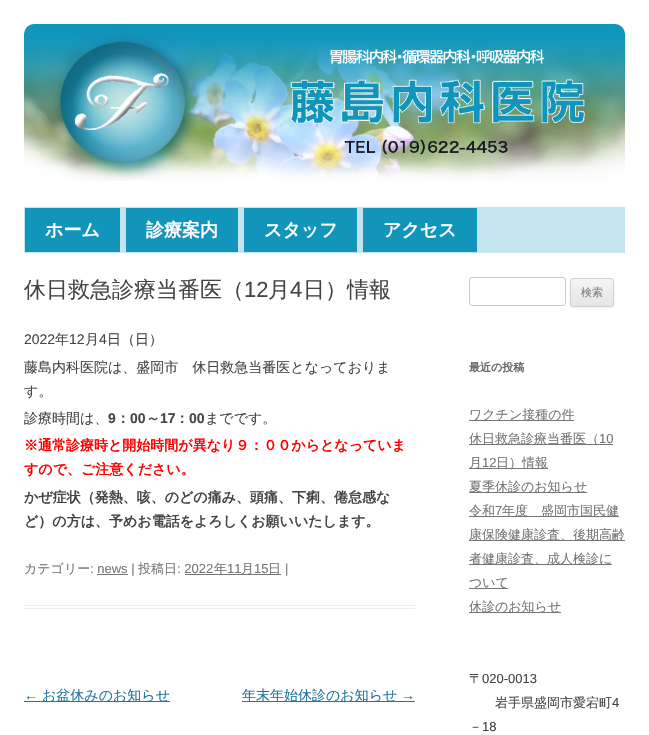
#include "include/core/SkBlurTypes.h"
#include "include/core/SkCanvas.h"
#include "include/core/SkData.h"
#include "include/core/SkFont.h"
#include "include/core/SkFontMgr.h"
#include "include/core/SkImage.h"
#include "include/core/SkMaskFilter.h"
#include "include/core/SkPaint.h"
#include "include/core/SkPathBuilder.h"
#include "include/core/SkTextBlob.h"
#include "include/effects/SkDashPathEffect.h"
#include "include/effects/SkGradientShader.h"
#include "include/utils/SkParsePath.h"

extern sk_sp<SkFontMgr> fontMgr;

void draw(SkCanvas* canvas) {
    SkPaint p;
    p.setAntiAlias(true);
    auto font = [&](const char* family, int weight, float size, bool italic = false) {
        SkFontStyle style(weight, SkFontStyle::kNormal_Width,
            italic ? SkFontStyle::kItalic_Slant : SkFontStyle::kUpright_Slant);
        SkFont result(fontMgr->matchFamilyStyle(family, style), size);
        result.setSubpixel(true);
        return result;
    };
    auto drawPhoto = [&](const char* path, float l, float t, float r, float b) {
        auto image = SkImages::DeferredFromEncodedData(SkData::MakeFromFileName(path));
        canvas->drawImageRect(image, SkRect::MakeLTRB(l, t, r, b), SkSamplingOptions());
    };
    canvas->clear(0xFFFFFFFF);
    drawPhoto("media/1.png", 24, 24, 625, 181);
    p.setColor(0xFFC4E5EE);
    canvas->drawRect(SkRect::MakeLTRB(121, 207, 625, 253), p);
    p.setColor(0xFF1195BB);
    canvas->drawRect(SkRect::MakeLTRB(24.5f, 207.5f, 120.5f, 252.5f), p);
    p.setStyle(SkPaint::kStroke_Style);
    p.setStrokeWidth(1);
    p.setColor(0xFFC4E5EE);
    canvas->drawRect(SkRect::MakeLTRB(24.5f, 207.5f, 120.5f, 252.5f), p);
    auto font1 = font("WenQuanYi Zen Hei", 700, 18);
    p.setStyle(SkPaint::kFill_Style);
    p.setColor(0xFFFFFFFF);
    canvas->drawString("ホーム", 45, 236, font1, p);
    p.setColor(0xFF1195BB);
    canvas->drawRect(SkRect::MakeLTRB(126, 208, 238, 252), p);
    p.setColor(0xFFFFFFFF);
    canvas->drawString("診療案内", 146, 236, font1, p);
    p.setColor(0xFF1195BB);
    canvas->drawRect(SkRect::MakeLTRB(244, 208, 357, 252), p);
    p.setColor(0xFFFFFFFF);
    canvas->drawString("スタッフ", 264, 236, font1, p);
    p.setColor(0xFF1195BB);
    canvas->drawRect(SkRect::MakeLTRB(363, 208, 477, 252), p);
    p.setColor(0xFFFFFFFF);
    canvas->drawString("アクセス", 383, 236, font1, p);
    p.setColor(0xFFEDEDED);
    canvas->drawRect(SkRect::MakeLTRB(24, 605, 415, 606), p);
    canvas->drawRect(SkRect::MakeLTRB(24, 608, 415, 609), p);
    auto font2 = font("WenQuanYi Zen Hei", 500, 22);
    p.setColor(0xFF444444);
    canvas->drawString("休日救急診療当番医（", 24, 297, font2, p);
    auto font3 = font("Liberation Sans", 400, 22);
    canvas->drawString("12", 244, 297, font3, p);
    canvas->drawString("月", 268, 297, font2, p);
    canvas->drawString("4", 290, 297, font3, p);
    canvas->drawString("日）情報", 303, 297, font2, p);
    auto font4 = font("Liberation Sans", 400, 14);
    canvas->drawString("2022", 24, 344, font4, p);
    auto font5 = font("WenQuanYi Zen Hei", 500, 14);
    canvas->drawString("年", 55, 344, font5, p);
    canvas->drawString("12", 69, 344, font4, p);
    canvas->drawString("月", 85, 344, font5, p);
    canvas->drawString("4", 99, 344, font4, p);
    {
        const struct { const char* s; float x, y; } items[] = {
            {"日（日）", 107, 344},
            {"藤島内科医院は、盛岡市　休日救急当番医となっておりま", 24, 372},
            {"す。", 24, 396},
            {"診療時間は、", 24, 423},
        };
        for (auto [s, x, y] : items) {
            canvas->drawString(s, x, y, font5, p);
        }
    }
    auto font6 = font("Liberation Sans", 700, 14);
    canvas->drawString("9", 108, 423, font6, p);
    auto font7 = font("WenQuanYi Zen Hei", 700, 14);
    canvas->drawString("：", 116, 423, font7, p);
    canvas->drawString("00", 130, 423, font6, p);
    canvas->drawString("～", 146, 423, font7, p);
    canvas->drawString("17", 160, 423, font6, p);
    canvas->drawString("：", 175, 423, font7, p);
    canvas->drawString("00", 189, 423, font6, p);
    canvas->drawString("までです。", 205, 423, font5, p);
    p.setColor(0xFFFF0000);
    canvas->drawString("※通常診療時と開始時間が異なり９：００からとなっていま", 24, 450, font7, p);
    canvas->drawString("すので、ご注意ください。", 24, 474, font7, p);
    p.setColor(0xFF444444);
    canvas->drawString("かぜ症状（発熱、咳、のどの痛み、頭痛、下痢、倦怠感な", 24, 502, font7, p);
    canvas->drawString("ど）の方は、予めお電話をよろしくお願いいたします。", 24, 526, font7, p);
    auto font8 = font("WenQuanYi Zen Hei", 500, 13);
    p.setColor(0xFF757575);
    canvas->drawString("カテゴリー", 24, 573, font8, p);
    auto font9 = font("Liberation Sans", 400, 13);
    canvas->drawString(": news |", 90, 573, font9, p);
    canvas->drawString("投稿日", 138, 573, font8, p);
    canvas->drawString(": 2022", 177, 573, font9, p);
    canvas->drawRect(SkRect::MakeLTRB(185, 574, 281, 575), p);
    canvas->drawString("年", 214, 573, font8, p);
    canvas->drawString("11", 227, 573, font9, p);
    canvas->drawString("月", 241, 573, font8, p);
    canvas->drawString("15", 254, 573, font9, p);
    canvas->drawString("日", 268, 573, font8, p);
    canvas->drawString("|", 285, 573, font9, p);
    canvas->drawRect(SkRect::MakeLTRB(97, 574, 128, 575), p);
    p.setColor(0xFF21759B);
    canvas->drawString("←", 24, 700, font4, p);
    canvas->drawRect(SkRect::MakeLTRB(24, 701, 170, 702), p);
    canvas->drawString("お盆休みのお知らせ", 42, 700, font5, p);
    canvas->drawRect(SkRect::MakeLTRB(242, 701, 415, 702), p);
    canvas->drawString("年末年始休診のお知らせ", 242, 700, font5, p);
    canvas->drawString("→", 401, 700, font4, p);
    p.setStyle(SkPaint::kStroke_Style);
    p.setColor(0xFFCCCCCC);
    canvas->drawRoundRect(SkRect::MakeLTRB(469.5f, 277.5f, 565.5f, 305.5f), 2.5f, 2.5f, p);
    p.setStyle(SkPaint::kFill_Style);
    p.setColor(0x1A404040);
    p.setMaskFilter(SkMaskFilter::MakeBlur(kNormal_SkBlurStyle, 1));
    canvas->drawRoundRect(SkRect::MakeLTRB(570, 279, 614, 308), 3, 3, p);
    p.setMaskFilter(nullptr);
    canvas->save();
    canvas->clipPath(SkPathBuilder().moveTo(573, 278).lineTo(611, 278).cubicTo(612.5f, 278, 614, 279.5f, 614, 281).lineTo(614, 304).cubicTo(614, 305.5f, 612.5f, 307, 611, 307).lineTo(573, 307).cubicTo(571.5f, 307, 570, 305.5f, 570, 304).lineTo(570, 281).cubicTo(570, 279.5f, 571.5f, 278, 573, 278).close().detach(), true);
    {
        const SkColor colors[] = {0xFFF4F4F4, 0xFFE6E6E6};
        const float stops[] = {0, 1};
        const SkPoint ends[] = {{592, 279}, {592, 306}};
        p.setShader(SkGradientShader::MakeLinear(ends, colors, stops, 2, SkTileMode::kClamp));
        p.setAlpha(255);
    }
    canvas->drawRect(SkRect::MakeLTRB(570, 279, 614, 306), p);
    canvas->restore();
    p.setStyle(SkPaint::kStroke_Style);
    p.setShader(nullptr);
    p.setColor(0xFFD2D2D2);
    canvas->drawRoundRect(SkRect::MakeLTRB(570.5f, 278.5f, 613.5f, 306.5f), 2.5f, 2.5f, p);
    auto font10 = font("WenQuanYi Zen Hei", 500, 11);
    p.setStyle(SkPaint::kFill_Style);
    p.setColor(0xFF7C7C7C);
    canvas->drawString("検索", 581, 296, font10, p);
    auto font11 = font("WenQuanYi Zen Hei", 700, 11);
    p.setColor(0xFF636363);
    canvas->drawString("最近の投稿", 469, 371, font11, p);
    p.setColor(0xFF757575);
    canvas->drawRect(SkRect::MakeLTRB(469, 420, 574, 421), p);
    canvas->drawString("ワクチン接種の件", 469, 419, font8, p);
    canvas->drawRect(SkRect::MakeLTRB(469, 444, 613, 445), p);
    canvas->drawString("休日救急診療当番医（", 469, 443, font8, p);
    canvas->drawString("10", 599, 443, font9, p);
    canvas->drawRect(SkRect::MakeLTRB(469, 468, 548, 469), p);
    canvas->drawString("月", 469, 467, font8, p);
    canvas->drawString("12", 482, 467, font9, p);
    canvas->drawString("日）情報", 496, 467, font8, p);
    canvas->drawRect(SkRect::MakeLTRB(469, 492, 587, 493), p);
    canvas->drawString("夏季休診のお知らせ", 469, 491, font8, p);
    canvas->drawRect(SkRect::MakeLTRB(469, 516, 619, 517), p);
    canvas->drawString("令和", 469, 515, font8, p);
    canvas->drawString("7", 495, 515, font9, p);
    canvas->drawString("年度　盛岡市国民健", 502, 515, font8, p);
    canvas->drawRect(SkRect::MakeLTRB(469, 540, 625, 541), p);
    canvas->drawString("康保険健康診査、後期高齢", 469, 539, font8, p);
    canvas->drawRect(SkRect::MakeLTRB(469, 564, 612, 565), p);
    canvas->drawString("者健康診査、成人検診に", 469, 563, font8, p);
    canvas->drawRect(SkRect::MakeLTRB(469, 588, 508, 589), p);
    canvas->drawString("ついて", 469, 587, font8, p);
    canvas->drawRect(SkRect::MakeLTRB(469, 612, 561, 613), p);
    canvas->drawString("休診のお知らせ", 469, 611, font8, p);
    p.setColor(0xFF444444);
    canvas->drawString("〒", 469, 683, font8, p);
    canvas->drawString("020-0013", 482, 683, font9, p);
    canvas->drawString("岩手県盛岡市愛宕町", 495, 707, font8, p);
    canvas->drawString("4", 612, 707, font9, p);
    canvas->drawString("－", 469, 731, font8, p);
    canvas->drawString("18", 482, 731, font9, p);
}
